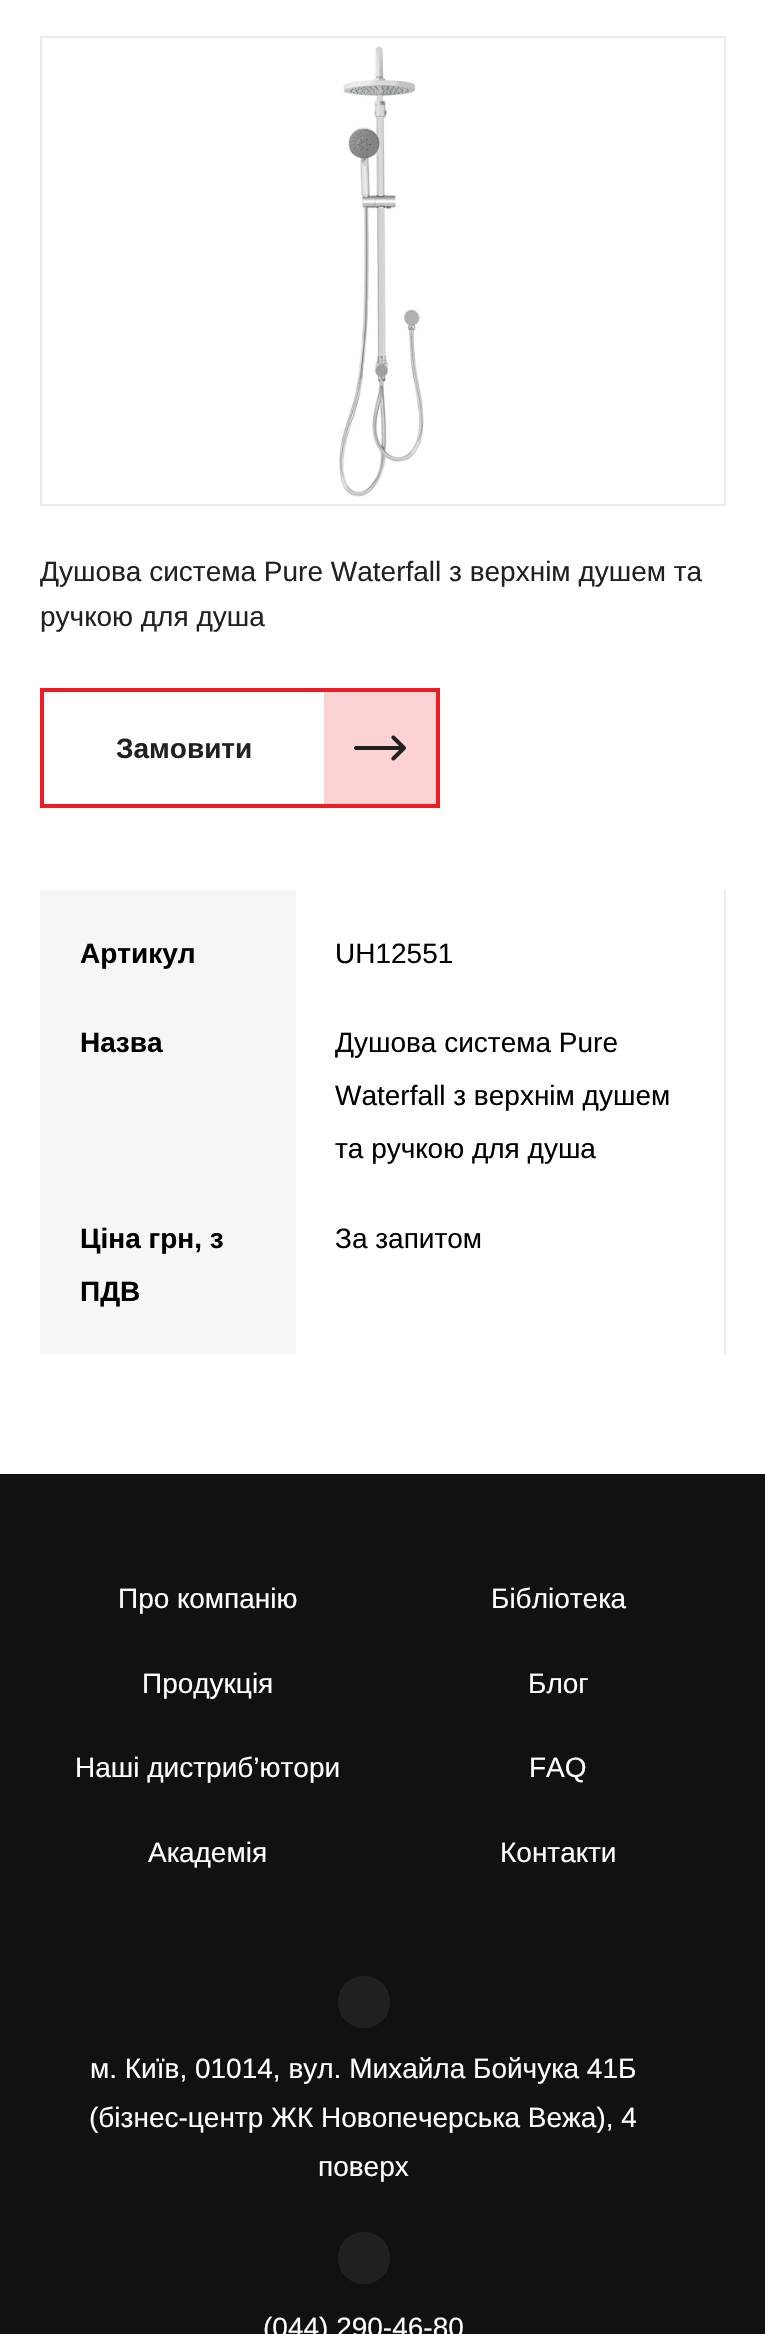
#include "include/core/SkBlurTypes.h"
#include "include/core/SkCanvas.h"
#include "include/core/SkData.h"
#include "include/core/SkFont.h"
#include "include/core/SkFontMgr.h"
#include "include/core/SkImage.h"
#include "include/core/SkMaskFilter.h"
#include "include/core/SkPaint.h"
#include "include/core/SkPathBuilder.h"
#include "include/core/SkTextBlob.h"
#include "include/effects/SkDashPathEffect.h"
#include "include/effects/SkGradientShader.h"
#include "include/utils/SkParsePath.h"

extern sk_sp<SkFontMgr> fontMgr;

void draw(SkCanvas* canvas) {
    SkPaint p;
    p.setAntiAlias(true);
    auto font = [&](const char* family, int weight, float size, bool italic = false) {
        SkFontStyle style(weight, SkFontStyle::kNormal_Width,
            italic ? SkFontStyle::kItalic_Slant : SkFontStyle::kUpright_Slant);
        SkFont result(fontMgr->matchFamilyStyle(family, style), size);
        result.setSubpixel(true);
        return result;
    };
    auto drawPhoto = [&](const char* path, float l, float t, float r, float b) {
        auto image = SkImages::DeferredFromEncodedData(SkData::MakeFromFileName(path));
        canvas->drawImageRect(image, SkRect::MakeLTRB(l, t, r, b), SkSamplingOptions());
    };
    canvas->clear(0xFFFFFFFF);
    p.setStyle(SkPaint::kStroke_Style);
    p.setStrokeWidth(2);
    p.setColor(0xFFEAEAEA);
    canvas->drawRect(SkRect::MakeLTRB(41, 37, 725, 505), p);
    drawPhoto("media/1.png", 339, 46, 424, 497);
    auto font1 = font("Liberation Sans", 400, 28);
    p.setStyle(SkPaint::kFill_Style);
    p.setColor(0xFF232020);
    canvas->drawString("Душова система Pure Waterfall з верхнім душем та", 40, 581, font1, p);
    canvas->drawString("ручкою для душа", 40, 626, font1, p);
    p.setStyle(SkPaint::kStroke_Style);
    p.setStrokeWidth(4);
    p.setColor(0xFFEE1C25);
    canvas->drawRect(SkRect::MakeLTRB(42, 690, 438, 806), p);
    p.setStyle(SkPaint::kFill_Style);
    p.setColor(0xFFFCD2D3);
    canvas->drawRect(SkRect::MakeLTRB(324, 692, 436, 804), p);
    auto font2 = font("Liberation Sans", 700, 28);
    p.setColor(0xFF232020);
    canvas->drawString("Замовити", 116, 758, font2, p);
    drawPhoto("media/2.png", 354, 735, 406, 761);
    p.setColor(0xFFF6F6F6);
    canvas->drawRect(SkRect::MakeLTRB(40, 890, 296, 1354), p);
    p.setColor(0xFF000000);
    canvas->drawString("Артикул", 80, 963, font2, p);
    canvas->drawString("UH12551", 335, 963, font1, p);
    canvas->drawString("Назва", 80, 1052, font2, p);
    {
        const struct { const char* s; float x, y; } items[] = {
            {"Душова система Pure", 335, 1052},
            {"Waterfall з верхнім душем", 335, 1105},
            {"та ручкою для душа", 335, 1158},
        };
        for (auto [s, x, y] : items) {
            canvas->drawString(s, x, y, font1, p);
        }
    }
    canvas->drawString("Ціна грн, з", 80, 1248, font2, p);
    canvas->drawString("ПДВ", 80, 1301, font2, p);
    p.setColor(0xFFEAEAEA);
    canvas->drawRect(SkRect::MakeLTRB(724, 890, 726, 1354), p);
    p.setColor(0xFF000000);
    canvas->drawString("За запитом", 335, 1248, font1, p);
    p.setColor(0xFF111111);
    canvas->drawRect(SkRect::MakeLTRB(0, 1474, 765, 2334), p);
    p.setColor(0xFFFFFFFF);
    {
        const struct { const char* s; float x, y; } items[] = {
            {"Про компанію", 118, 1608},
            {"Бібліотека", 491, 1608},
            {"Продукція", 142, 1693},
            {"Блог", 528, 1693},
            {"Наші дистриб’ютори", 75, 1777},
            {"FAQ", 529, 1777},
            {"Академія", 148, 1862},
            {"Контакти", 500, 1862},
        };
        for (auto [s, x, y] : items) {
            canvas->drawString(s, x, y, font1, p);
        }
    }
    p.setColor(0xFF232020);
    canvas->drawCircle(364, 2002, 26, p);
    p.setColor(0xFFFFFFFF);
    {
        const struct { const char* s; float x, y; } items[] = {
            {"м. Київ, 01014, вул. Михайла Бойчука 41Б", 90, 2078},
            {"(бізнес-центр ЖК Новопечерська Вежа), 4", 89, 2127},
            {"поверх", 318, 2176},
        };
        for (auto [s, x, y] : items) {
            canvas->drawString(s, x, y, font1, p);
        }
    }
    p.setColor(0xFF232020);
    canvas->drawCircle(364, 2258, 26, p);
    p.setColor(0xFFFFFFFF);
    canvas->drawString("(044) 290-46-80", 263, 2337, font1, p);
}
